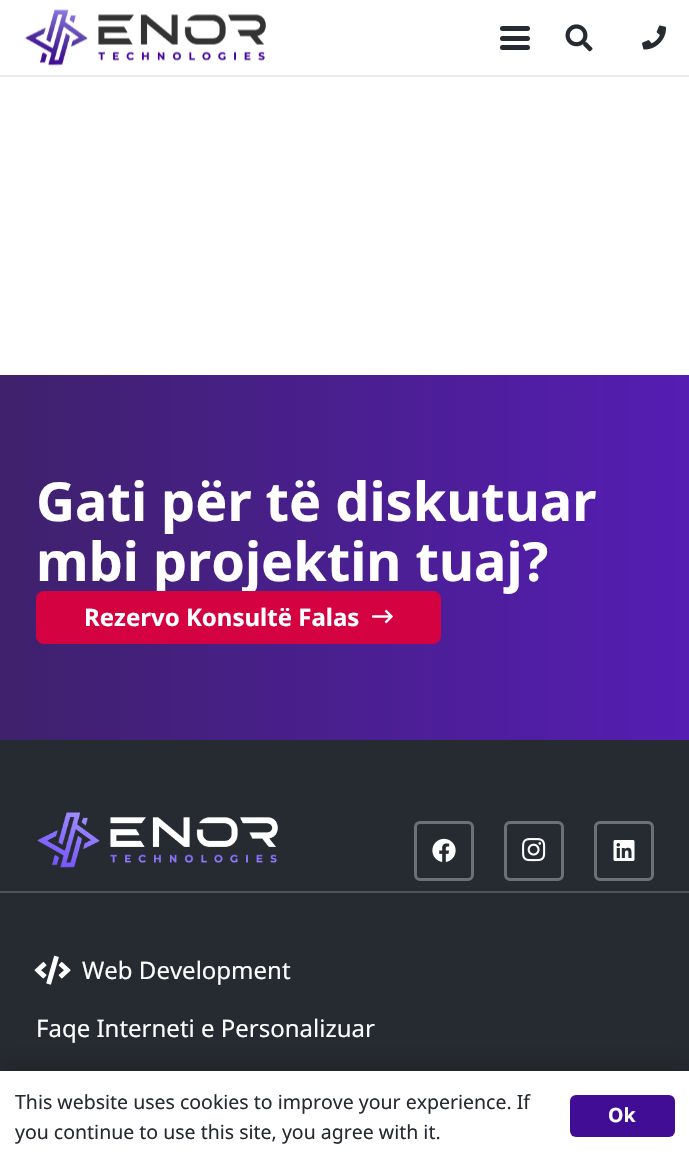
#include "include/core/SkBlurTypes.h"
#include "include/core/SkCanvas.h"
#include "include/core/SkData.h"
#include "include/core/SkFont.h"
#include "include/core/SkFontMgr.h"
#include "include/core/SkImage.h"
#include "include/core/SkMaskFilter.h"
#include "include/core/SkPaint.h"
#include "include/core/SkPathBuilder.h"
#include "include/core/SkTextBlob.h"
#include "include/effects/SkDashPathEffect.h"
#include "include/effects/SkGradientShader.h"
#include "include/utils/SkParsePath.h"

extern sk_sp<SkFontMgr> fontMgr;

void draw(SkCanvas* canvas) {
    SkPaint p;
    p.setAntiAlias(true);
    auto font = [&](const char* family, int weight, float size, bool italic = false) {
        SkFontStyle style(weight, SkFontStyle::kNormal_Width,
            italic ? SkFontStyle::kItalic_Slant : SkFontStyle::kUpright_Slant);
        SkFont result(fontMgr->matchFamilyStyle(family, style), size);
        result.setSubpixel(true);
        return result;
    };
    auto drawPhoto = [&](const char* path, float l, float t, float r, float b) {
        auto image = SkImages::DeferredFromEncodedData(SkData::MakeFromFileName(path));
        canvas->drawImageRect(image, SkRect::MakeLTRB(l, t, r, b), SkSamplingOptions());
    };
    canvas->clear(0xFFFFFFFF);
    p.setColor(0xFFEBEBEB);
    canvas->drawRect(SkRect::MakeLTRB(0, 75, 689, 77), p);
    drawPhoto("media/1.png", 25, 9, 266, 66);
    p.setColor(0xFF262B31);
    canvas->drawRoundRect(SkRect::MakeLTRB(500, 36, 530, 41), 2.5f, 2.5f, p);
    canvas->drawRoundRect(SkRect::MakeLTRB(500, 26, 530, 31), 2.5f, 2.5f, p);
    canvas->drawRoundRect(SkRect::MakeLTRB(500, 45, 530, 50), 2.5f, 2.5f, p);
    drawPhoto("media/2.png", 565, 24, 593, 52);
    drawPhoto("media/3.png", 642, 25, 666, 50);
    {
        const SkColor colors[] = {0xFF3F216C, 0xFF551DB3};
        const float stops[] = {0, 1};
        const SkPoint ends[] = {{0, 557}, {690, 557}};
        p.setShader(SkGradientShader::MakeLinear(ends, colors, stops, 2, SkTileMode::kClamp));
        p.setAlpha(255);
    }
    canvas->drawRect(SkRect::MakeLTRB(0, 375, 689, 740), p);
    auto font1 = font("Noto Sans", 700, 54);
    p.setShader(nullptr);
    p.setColor(0xFFFFFFFF);
    canvas->drawString("Gati për të diskutuar", 36, 521, font1, p);
    canvas->drawString("mbi projektin tuaj?", 36, 581, font1, p);
    p.setColor(0xFFD50241);
    canvas->drawRoundRect(SkRect::MakeLTRB(36, 591, 441, 644), 8, 8, p);
    auto font2 = font("Noto Sans", 700, 24);
    p.setColor(0xFFFFFFFF);
    canvas->drawString("Rezervo Konsultë Falas", 84, 626, font2, p);
    drawPhoto("media/4.png", 372, 609, 393, 624);
    p.setColor(0xFF262B31);
    canvas->drawRect(SkRect::MakeLTRB(0, 740, 689, 1071), p);
    p.setColor(0xFF51555A);
    canvas->drawRect(SkRect::MakeLTRB(0, 891, 689, 893), p);
    drawPhoto("media/5.png", 37, 812, 278, 868);
    p.setStyle(SkPaint::kStroke_Style);
    p.setStrokeWidth(3);
    p.setColor(0xFF6D7175);
    canvas->drawRoundRect(SkRect::MakeLTRB(415.5f, 822.5f, 472.5f, 879.5f), 4.5f, 4.5f, p);
    drawPhoto("media/6.png", 432, 838, 456, 862);
    canvas->drawRoundRect(SkRect::MakeLTRB(505.5f, 822.5f, 562.5f, 879.5f), 4.5f, 4.5f, p);
    drawPhoto("media/7.png", 522, 838, 546, 862);
    canvas->drawRoundRect(SkRect::MakeLTRB(595.5f, 822.5f, 652.5f, 879.5f), 4.5f, 4.5f, p);
    drawPhoto("media/8.png", 613, 840, 635, 861);
    drawPhoto("media/9.png", 34, 955, 71, 985);
    auto font3 = font("Noto Sans", 400, 24);
    p.setStyle(SkPaint::kFill_Style);
    p.setColor(0xFFFFFFFF);
    canvas->drawString("Web Development", 82, 979, font3, p);
    canvas->drawString("Faqe Interneti e Personalizuar", 36, 1037, font3, p);
    p.setColor(0x26000000);
    p.setMaskFilter(SkMaskFilter::MakeBlur(kNormal_SkBlurStyle, 11));
    canvas->drawRect(SkRect::MakeLTRB(0, 1064, 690, 1154), p);
    p.setMaskFilter(nullptr);
    p.setColor(0xFFFFFFFF);
    canvas->drawRect(SkRect::MakeLTRB(0, 1071, 689, 1161), p);
    auto font4 = font("Noto Sans", 400, 19.5f);
    p.setColor(0xFF262B31);
    canvas->drawString("This website uses cookies to improve your experience. If", 15, 1109, font4, p);
    canvas->drawString("you continue to use this site, you agree with it.", 15, 1139, font4, p);
    p.setColor(0xFF420D95);
    canvas->drawRoundRect(SkRect::MakeLTRB(570, 1095, 675, 1137), 6, 6, p);
    auto font5 = font("Noto Sans", 700, 19.5f);
    p.setColor(0xFFFFFFFF);
    canvas->drawString("Ok", 608, 1122, font5, p);
}
